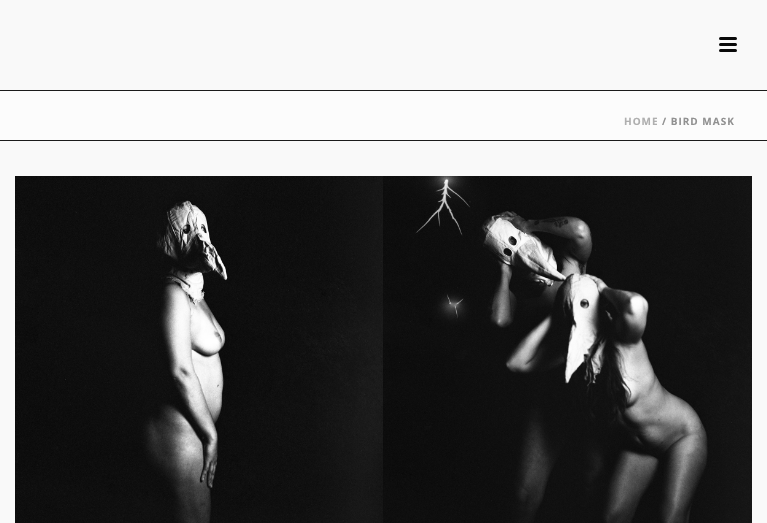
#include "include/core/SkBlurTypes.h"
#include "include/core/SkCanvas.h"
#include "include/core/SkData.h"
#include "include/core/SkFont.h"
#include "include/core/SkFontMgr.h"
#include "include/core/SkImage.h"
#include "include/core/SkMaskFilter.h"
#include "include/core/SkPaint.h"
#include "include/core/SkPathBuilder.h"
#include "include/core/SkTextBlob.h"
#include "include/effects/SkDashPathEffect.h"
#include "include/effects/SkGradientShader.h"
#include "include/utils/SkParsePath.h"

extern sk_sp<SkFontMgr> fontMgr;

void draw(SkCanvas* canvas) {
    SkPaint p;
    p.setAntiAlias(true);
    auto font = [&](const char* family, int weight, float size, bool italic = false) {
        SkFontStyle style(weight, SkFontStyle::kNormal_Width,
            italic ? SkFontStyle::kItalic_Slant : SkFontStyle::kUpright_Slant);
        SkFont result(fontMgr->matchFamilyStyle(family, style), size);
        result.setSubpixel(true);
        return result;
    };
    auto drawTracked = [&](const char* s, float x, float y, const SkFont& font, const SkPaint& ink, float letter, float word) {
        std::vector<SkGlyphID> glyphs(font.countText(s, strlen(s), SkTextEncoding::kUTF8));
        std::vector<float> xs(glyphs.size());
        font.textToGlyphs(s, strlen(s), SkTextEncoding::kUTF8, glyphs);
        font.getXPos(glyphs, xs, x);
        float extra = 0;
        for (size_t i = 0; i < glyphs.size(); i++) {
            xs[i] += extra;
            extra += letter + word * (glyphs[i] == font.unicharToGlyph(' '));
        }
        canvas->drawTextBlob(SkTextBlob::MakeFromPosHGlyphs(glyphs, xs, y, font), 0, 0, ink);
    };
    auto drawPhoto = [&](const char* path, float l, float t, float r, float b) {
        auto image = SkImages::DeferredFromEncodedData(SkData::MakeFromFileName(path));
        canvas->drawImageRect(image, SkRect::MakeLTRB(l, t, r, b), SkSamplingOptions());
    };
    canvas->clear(0xFFF9F9F9);
    {
        const struct { float l, t, r, b; SkColor color; } items[] = {
            {0, 91, 767, 140, 0xFFFCFCFC},
            {0, 140, 767, 141, 0xFF1B1B1B},
            {0, 90, 767, 91, 0xFF1B1B1B},
        };
        for (auto [l, t, r, b, color] : items) {
            p.setColor(color);
            canvas->drawRect(SkRect::MakeLTRB(l, t, r, b), p);
        }
    }
    p.setColor(0xFF0A0A0A);
    canvas->drawRoundRect(SkRect::MakeLTRB(719, 37, 737, 40), 1.5f, 1.5f, p);
    canvas->drawRoundRect(SkRect::MakeLTRB(719, 43, 737, 46), 1.5f, 1.5f, p);
    canvas->drawRoundRect(SkRect::MakeLTRB(719, 49, 737, 52), 1.5f, 1.5f, p);
    auto font1 = font("Open Sans", 700, 10);
    p.setColor(0xFFAFAFAF);
    drawTracked("HOME", 624, 125, font1, p, 1, 0);
    p.setColor(0xFF919191);
    drawTracked("/ BIRD MASK", 662, 125, font1, p, 1, 0);
    drawPhoto("media/1.png", 15, 176, 383, 523);
    drawPhoto("media/2.png", 383, 176, 752, 523);
}
